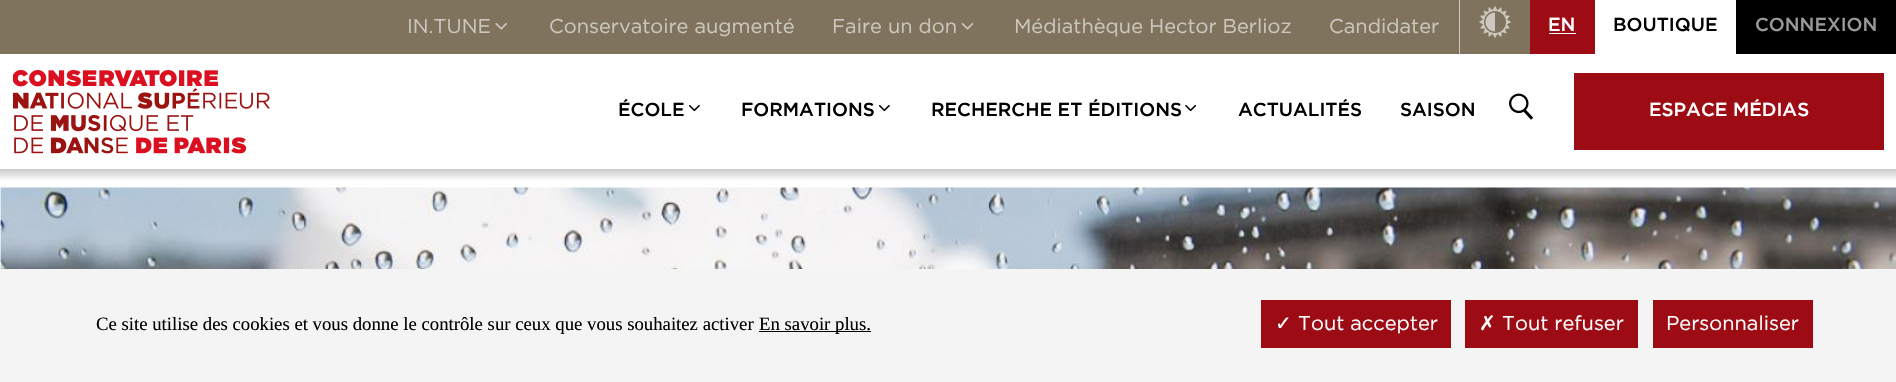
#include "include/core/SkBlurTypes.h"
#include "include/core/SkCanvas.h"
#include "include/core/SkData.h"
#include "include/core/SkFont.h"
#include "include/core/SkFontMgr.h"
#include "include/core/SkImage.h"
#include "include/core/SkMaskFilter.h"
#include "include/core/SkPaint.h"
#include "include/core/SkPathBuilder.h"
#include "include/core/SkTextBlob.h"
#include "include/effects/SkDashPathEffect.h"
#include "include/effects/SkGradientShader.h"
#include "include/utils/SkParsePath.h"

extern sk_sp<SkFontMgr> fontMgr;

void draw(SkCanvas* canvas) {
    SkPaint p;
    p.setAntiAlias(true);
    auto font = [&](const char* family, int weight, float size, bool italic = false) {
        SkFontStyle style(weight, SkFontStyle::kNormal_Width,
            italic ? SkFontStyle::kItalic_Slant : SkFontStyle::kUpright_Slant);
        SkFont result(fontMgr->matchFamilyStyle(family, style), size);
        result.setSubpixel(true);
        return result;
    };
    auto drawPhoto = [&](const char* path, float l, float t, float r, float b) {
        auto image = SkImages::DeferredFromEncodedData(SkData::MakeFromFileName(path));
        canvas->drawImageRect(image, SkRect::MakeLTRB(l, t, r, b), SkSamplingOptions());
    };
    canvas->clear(0xFFFFFFFF);
    p.setColor(0xFF80735D);
    canvas->drawRect(SkRect::MakeLTRB(0, 0, 1530, 54), p);
    auto font1 = font("Gotham", 400, 20);
    p.setColor(0xFFCCC7BE);
    canvas->drawString("IN.TUNE", 407, 33, font1, p);
    drawPhoto("media/1.png", 495, 23, 507, 30);
    canvas->drawString("Conservatoire augmenté", 549, 33, font1, p);
    canvas->drawString("Faire un don", 832, 33, font1, p);
    drawPhoto("media/2.png", 961, 23, 974, 30);
    canvas->drawString("Médiathèque Hector Berlioz", 1014, 33, font1, p);
    canvas->drawString("Candidater", 1329, 33, font1, p);
    canvas->drawRect(SkRect::MakeLTRB(1459, 0, 1460, 54), p);
    drawPhoto("media/3.png", 1479, 6, 1511, 38);
    p.setColor(0xFF9D0C15);
    canvas->drawRect(SkRect::MakeLTRB(1530, 0, 1595, 54), p);
    auto font2 = font("Gotham", 500, 18.75f);
    p.setColor(0xFFFFFFFF);
    canvas->drawString("EN", 1548, 31, font2, p);
    canvas->drawRect(SkRect::MakeLTRB(1549, 33, 1576, 34), p);
    p.setColor(0xFF000000);
    canvas->drawString("BOUTIQUE", 1613, 31, font2, p);
    canvas->drawRect(SkRect::MakeLTRB(1736, 0, 1896, 54), p);
    p.setColor(0xFF999999);
    canvas->drawString("CONNEXION", 1755, 31, font2, p);
    drawPhoto("media/4.png", 13, 70, 270, 154);
    p.setColor(0xFF000000);
    canvas->drawString("ÉCOLE", 618, 116, font2, p);
    drawPhoto("media/5.png", 688, 105, 700, 112);
    canvas->drawString("FORMATIONS", 741, 116, font2, p);
    drawPhoto("media/5.png", 878, 105, 890, 112);
    canvas->drawString("RECHERCHE ET ÉDITIONS", 931, 116, font2, p);
    drawPhoto("media/6.png", 1185, 105, 1197, 112);
    canvas->drawString("ACTUALITÉS", 1238, 116, font2, p);
    canvas->drawString("SAISON", 1400, 116, font2, p);
    drawPhoto("media/7.png", 1509, 93, 1534, 120);
    p.setColor(0xFF9D0C15);
    canvas->drawRect(SkRect::MakeLTRB(1574, 73, 1884, 150), p);
    p.setColor(0xFFFFFFFF);
    canvas->drawString("ESPACE MÉDIAS", 1649, 116, font2, p);
    {
        const SkColor colors[] = {0xFFCACACA, 0xFFFFFFFF};
        const float stops[] = {0, 1};
        const SkPoint ends[] = {{948, 169}, {948, 181}};
        p.setShader(SkGradientShader::MakeLinear(ends, colors, stops, 2, SkTileMode::kClamp));
        p.setAlpha(255);
    }
    canvas->drawRect(SkRect::MakeLTRB(0, 169, 1896, 180), p);
    drawPhoto("media/8.png", 0, 187, 1896, 269);
    p.setShader(nullptr);
    p.setColor(0xFFF4F4F4);
    canvas->drawRect(SkRect::MakeLTRB(0, 269, 1896, 382), p);
    auto font3 = font("Liberation Serif", 400, 18.75f);
    p.setColor(0xFF000000);
    canvas->drawString("Ce site utilise des cookies et vous donne le contrôle sur ceux que vous souhaitez activer", 96, 330, font3, p);
    canvas->drawRect(SkRect::MakeLTRB(759, 331, 871, 332), p);
    canvas->drawString("En savoir plus.", 759, 330, font3, p);
    p.setColor(0xFF9D0C15);
    canvas->drawRect(SkRect::MakeLTRB(1261, 300, 1451, 348), p);
    auto font4 = font("DejaVu Sans", 400, 20);
    p.setColor(0xFFFFFFFF);
    canvas->drawString("✓", 1275, 330, font4, p);
    canvas->drawString("Tout accepter", 1298, 330, font1, p);
    p.setColor(0xFF9D0C15);
    canvas->drawRect(SkRect::MakeLTRB(1465, 300, 1638, 348), p);
    p.setColor(0xFFFFFFFF);
    canvas->drawString("✗", 1479, 330, font4, p);
    canvas->drawString("Tout refuser", 1502, 330, font1, p);
    p.setColor(0xFF9D0C15);
    canvas->drawRect(SkRect::MakeLTRB(1653, 300, 1813, 348), p);
    p.setColor(0xFFFFFFFF);
    canvas->drawString("Personnaliser", 1666, 330, font1, p);
}
